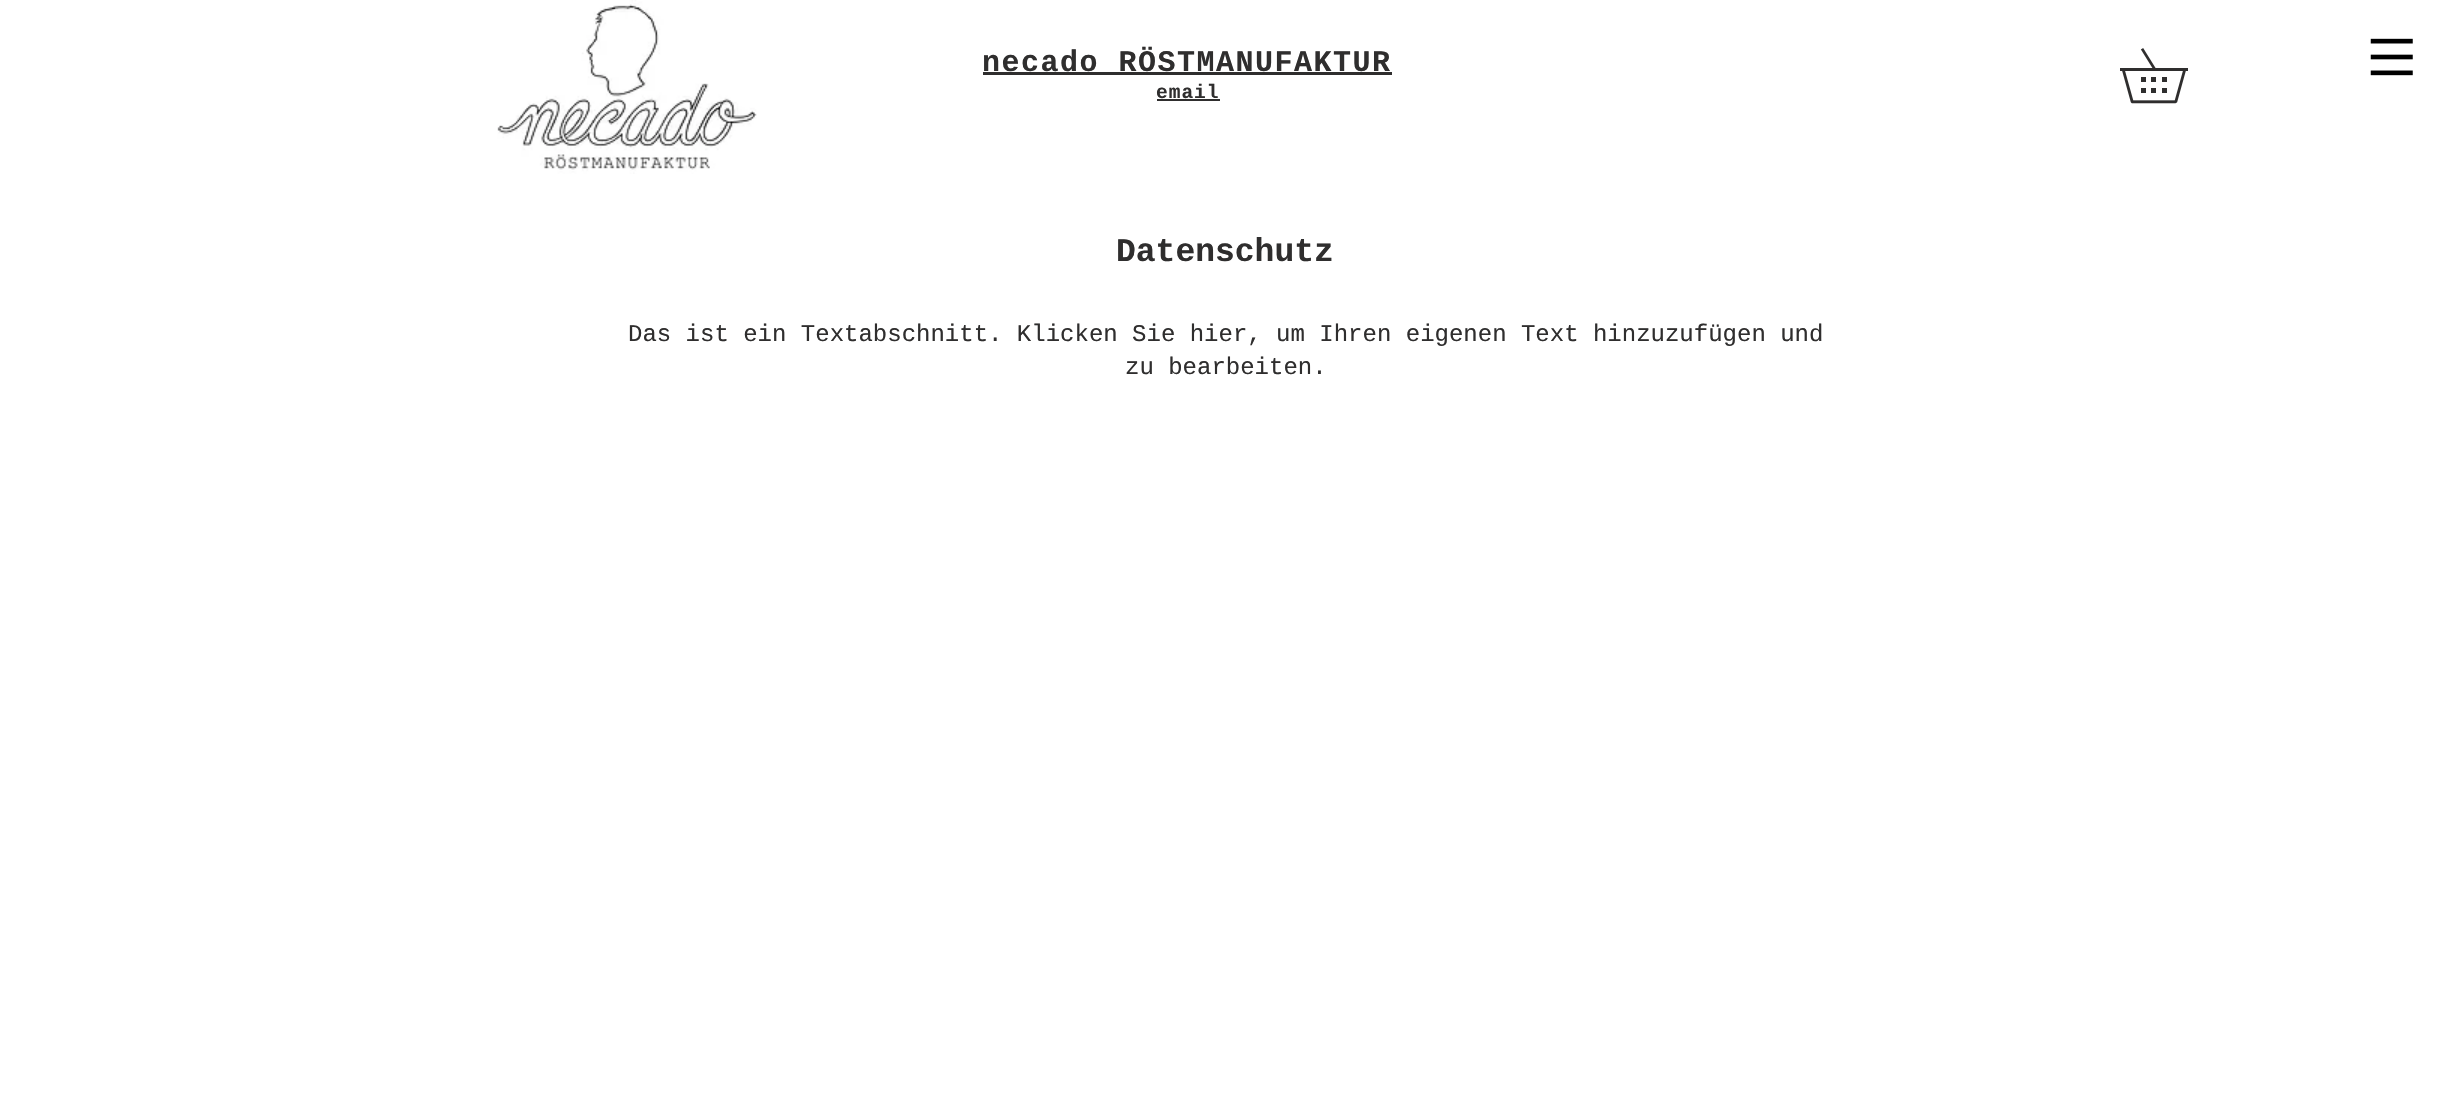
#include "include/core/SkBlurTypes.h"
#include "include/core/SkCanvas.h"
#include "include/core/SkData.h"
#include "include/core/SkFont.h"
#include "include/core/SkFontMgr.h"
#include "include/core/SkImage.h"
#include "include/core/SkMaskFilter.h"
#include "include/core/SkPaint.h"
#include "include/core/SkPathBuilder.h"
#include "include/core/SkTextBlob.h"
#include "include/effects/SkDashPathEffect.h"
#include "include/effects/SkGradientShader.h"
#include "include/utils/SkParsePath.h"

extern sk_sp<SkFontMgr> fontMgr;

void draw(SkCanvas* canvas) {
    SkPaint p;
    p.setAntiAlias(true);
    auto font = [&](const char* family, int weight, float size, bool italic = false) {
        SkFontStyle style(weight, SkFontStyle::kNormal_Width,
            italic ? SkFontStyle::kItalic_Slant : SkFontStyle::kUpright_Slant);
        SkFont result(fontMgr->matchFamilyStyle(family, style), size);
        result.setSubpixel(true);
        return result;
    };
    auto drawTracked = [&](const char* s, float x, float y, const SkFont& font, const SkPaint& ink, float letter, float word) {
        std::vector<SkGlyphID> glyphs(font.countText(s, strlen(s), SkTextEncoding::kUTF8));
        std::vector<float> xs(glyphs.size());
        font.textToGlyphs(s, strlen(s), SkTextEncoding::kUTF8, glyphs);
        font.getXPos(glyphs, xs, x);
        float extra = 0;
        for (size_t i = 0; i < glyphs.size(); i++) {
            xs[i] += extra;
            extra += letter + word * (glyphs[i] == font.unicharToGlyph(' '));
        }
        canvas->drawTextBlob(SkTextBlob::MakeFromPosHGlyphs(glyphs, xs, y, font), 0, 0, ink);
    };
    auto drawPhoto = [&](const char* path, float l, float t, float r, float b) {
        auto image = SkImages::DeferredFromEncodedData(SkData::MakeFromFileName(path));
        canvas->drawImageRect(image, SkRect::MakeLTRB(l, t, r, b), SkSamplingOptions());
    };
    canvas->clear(0xFFFFFFFF);
    drawPhoto("media/1.png", 497, 0, 757, 174);
    auto font1 = font("Liberation Mono", 700, 30);
    p.setColor(0xFF2F2E2E);
    drawTracked("necado RÖSTMANUFAKTUR", 982, 71, font1, p, 1.5f, 0);
    canvas->drawRect(SkRect::MakeLTRB(983, 72, 1392, 75), p);
    auto font2 = font("Liberation Mono", 700, 19.5f);
    drawTracked("email", 1156, 98, font2, p, 1, 0);
    canvas->drawRect(SkRect::MakeLTRB(1157, 99, 1220, 101), p);
    drawPhoto("media/2.png", 2120, 48, 2188, 104);
    drawPhoto("media/3.png", 2370, 38, 2413, 76);
    auto font3 = font("Liberation Mono", 700, 33);
    canvas->drawString("Datenschutz", 1116, 261, font3, p);
    auto font4 = font("Liberation Mono", 400, 24);
    canvas->drawString("Das ist ein Textabschnitt. Klicken Sie hier, um Ihren eigenen Text hinzuzufügen und", 628, 341, font4, p);
    canvas->drawString("zu bearbeiten.", 1125, 374, font4, p);
}
